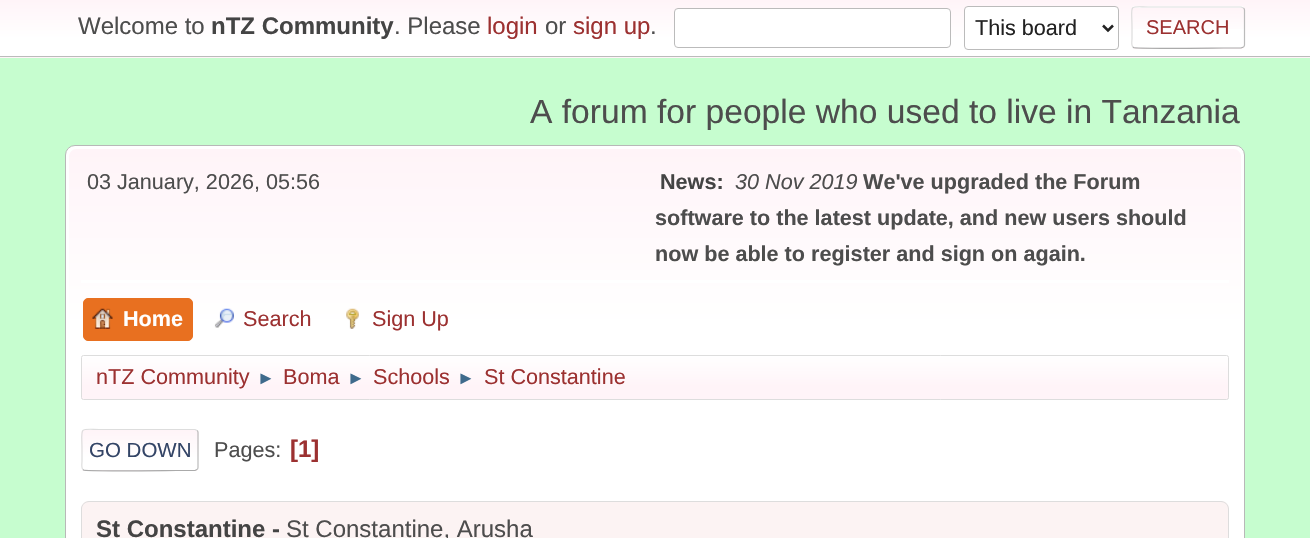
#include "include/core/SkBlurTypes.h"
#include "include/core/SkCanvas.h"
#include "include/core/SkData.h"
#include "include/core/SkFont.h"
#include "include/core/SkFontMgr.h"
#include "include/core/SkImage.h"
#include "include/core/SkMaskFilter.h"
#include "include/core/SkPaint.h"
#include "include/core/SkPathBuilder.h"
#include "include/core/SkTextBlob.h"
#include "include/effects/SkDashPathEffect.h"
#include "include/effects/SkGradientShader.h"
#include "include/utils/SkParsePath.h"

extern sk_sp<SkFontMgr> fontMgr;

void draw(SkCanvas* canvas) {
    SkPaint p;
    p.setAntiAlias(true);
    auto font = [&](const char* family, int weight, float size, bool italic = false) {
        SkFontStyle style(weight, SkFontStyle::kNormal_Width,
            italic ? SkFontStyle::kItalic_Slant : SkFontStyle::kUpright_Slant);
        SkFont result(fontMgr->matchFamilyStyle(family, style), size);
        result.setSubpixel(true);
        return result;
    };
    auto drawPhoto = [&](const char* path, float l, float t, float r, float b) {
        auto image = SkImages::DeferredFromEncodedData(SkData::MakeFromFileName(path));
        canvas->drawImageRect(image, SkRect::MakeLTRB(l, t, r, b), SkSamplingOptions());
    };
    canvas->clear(0xFFC6FDCF);
    {
        const SkColor colors[] = {0xFFFFF4F8, 0xFFFFFFFF};
        const float stops[] = {0, 0.7f};
        const SkPoint ends[] = {{655, 0}, {655, 56}};
        p.setShader(SkGradientShader::MakeLinear(ends, colors, stops, 2, SkTileMode::kClamp));
        p.setAlpha(255);
    }
    canvas->drawRect(SkRect::MakeLTRB(0, 0, 1310, 56), p);
    {
        const SkColor colors[] = {0xFFFFF4F8, 0xFFFFFFFF};
        const float stops[] = {0, 0.7f};
        const SkPoint ends[] = {{655, 56}, {655, 113}};
        p.setShader(SkGradientShader::MakeLinear(ends, colors, stops, 2, SkTileMode::kClamp));
        p.setAlpha(255);
    }
    canvas->drawRect(SkRect::MakeLTRB(0, 57, 1310, 58), p);
    p.setShader(nullptr);
    p.setColor(0xFFBBBBBB);
    canvas->drawRect(SkRect::MakeLTRB(0, 56, 1310, 57), p);
    auto font1 = font("Liberation Sans", 400, 24);
    p.setColor(0xFF4D4D4D);
    canvas->drawString("Welcome to", 78, 34, font1, p);
    auto font2 = font("Liberation Sans", 700, 24);
    p.setColor(0xFF444444);
    canvas->drawString("nTZ Community", 211, 34, font2, p);
    p.setColor(0xFF4D4D4D);
    canvas->drawString(". Please", 394, 34, font1, p);
    p.setColor(0xFF9C3131);
    canvas->drawString("login", 487, 34, font1, p);
    p.setColor(0xFF4D4D4D);
    canvas->drawString("or", 545, 34, font1, p);
    p.setColor(0xFF9C3131);
    canvas->drawString("sign up", 573, 34, font1, p);
    p.setColor(0xFF4D4D4D);
    canvas->drawString(".", 650, 34, font1, p);
    p.setColor(0xFFFFFFFF);
    canvas->drawRoundRect(SkRect::MakeLTRB(674.5f, 8.5f, 950.5f, 47.5f), 3.5f, 3.5f, p);
    p.setStyle(SkPaint::kStroke_Style);
    p.setStrokeWidth(1);
    p.setColor(0xFFBBBBBB);
    canvas->drawRoundRect(SkRect::MakeLTRB(674.5f, 8.5f, 950.5f, 47.5f), 3.5f, 3.5f, p);
    p.setStyle(SkPaint::kFill_Style);
    p.setColor(0xFFFFFFFF);
    canvas->drawRoundRect(SkRect::MakeLTRB(964.5f, 6.5f, 1118.5f, 49.5f), 3.5f, 3.5f, p);
    p.setStyle(SkPaint::kStroke_Style);
    p.setColor(0xFFBBBBBB);
    canvas->drawRoundRect(SkRect::MakeLTRB(964.5f, 6.5f, 1118.5f, 49.5f), 3.5f, 3.5f, p);
    p.setStrokeWidth(2.5f);
    p.setColor(0xFF222222);
    canvas->drawPath(SkPathBuilder().moveTo(1103, 25.5f).lineTo(1108, 30.5f).lineTo(1113, 25.5f).detach(), p);
    auto font3 = font("Liberation Sans", 400, 21.6f);
    p.setStyle(SkPaint::kFill_Style);
    canvas->drawString("This board", 975, 35, font3, p);
    p.setColor(0xFFFFFFFF);
    canvas->drawRoundRect(SkRect::MakeLTRB(1131, 6, 1245, 49), 4, 4, p);
    {
        const SkColor colors[] = {0xFFFFF4F8, 0x00FFF4F8};
        const float stops[] = {0, 0.7f};
        const SkPoint ends[] = {{1188, 7.5f}, {1188, 48}};
        p.setShader(SkGradientShader::MakeLinear(ends, colors, stops, 2, SkTileMode::kClamp));
        p.setAlpha(255);
    }
    canvas->drawRect(SkRect::MakeLTRB(1131, 8, 1245, 29), p);
    canvas->save();
    canvas->clipPath(SkPathBuilder().moveTo(1135, 6).lineTo(1241, 6).cubicTo(1243, 6, 1245, 8, 1245, 10).lineTo(1245, 45).cubicTo(1245, 47, 1243, 49, 1241, 49).lineTo(1135, 49).cubicTo(1133, 49, 1131, 47, 1131, 45).lineTo(1131, 10).cubicTo(1131, 8, 1133, 6, 1135, 6).close().detach(), true);
    {
        const SkColor colors[] = {0xFFFFF4F8, 0xFFFFFFFF};
        const float stops[] = {0, 0.7f};
        const SkPoint ends[] = {{1188, 47}, {1188, 88}};
        p.setShader(SkGradientShader::MakeLinear(ends, colors, stops, 2, SkTileMode::kClamp));
        p.setAlpha(255);
    }
    canvas->drawRect(SkRect::MakeLTRB(1131, 48, 1245, 49), p);
    canvas->restore();
    p.setStyle(SkPaint::kStroke_Style);
    p.setStrokeWidth(1.2f);
    p.setShader(nullptr);
    p.setColor(0xFFBBBBBB);
    canvas->drawPath(SkPathBuilder().moveTo(1243.5f, 8).cubicTo(1244, 8.5f, 1244.5f, 9, 1244.5f, 10).lineTo(1244.5f, 45).cubicTo(1244.5f, 46, 1244, 46.5f, 1243.5f, 47).detach(), p);
    p.setColor(0xFFAAAAAA);
    canvas->drawPath(SkPathBuilder().moveTo(1243.5f, 47).lineTo(1241, 48).lineTo(1223.5f, 48).cubicTo(1214, 48, 1135.5f, 49, 1133.5f, 47.5f).lineTo(1133, 47).detach(), p);
    p.setColor(0xFFDDDDDD);
    canvas->drawPath(SkPathBuilder().moveTo(1133, 47).cubicTo(1131, 45.5f, 1132, 40.5f, 1132, 39).lineTo(1132, 27.5f).cubicTo(1132, 2.5f, 1127, 7, 1152.5f, 7).lineTo(1241, 7).lineTo(1243.5f, 8).detach(), p);
    auto font4 = font("Liberation Sans", 400, 20);
    p.setStyle(SkPaint::kFill_Style);
    p.setColor(0xFF9C3131);
    canvas->drawString("SEARCH", 1146, 34, font4, p);
    auto font5 = font("Liberation Sans", 400, 33.6f);
    p.setColor(0xFF4D4D4D);
    canvas->drawString("A forum for people who used to live in Tanzania", 530, 123, font5, p);
    p.setColor(0xFFFFFFFF);
    canvas->drawRoundRect(SkRect::MakeLTRB(65.5f, 145.5f, 1244.5f, 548.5f), 9.5f, 9.5f, p);
    p.setStyle(SkPaint::kStroke_Style);
    p.setStrokeWidth(1);
    p.setColor(0xFFB8B8B8);
    canvas->drawRoundRect(SkRect::MakeLTRB(65.5f, 145.5f, 1244.5f, 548.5f), 9.5f, 9.5f, p);
    p.setStyle(SkPaint::kFill_Style);
    {
        const SkColor colors[] = {0xFFFFF4F8, 0xFFFFFFFF};
        const float stops[] = {0, 0.7f};
        const SkPoint ends[] = {{655, 149}, {655, 403}};
        p.setShader(SkGradientShader::MakeLinear(ends, colors, stops, 2, SkTileMode::kClamp));
        p.setAlpha(255);
    }
    canvas->drawPath(SkPathBuilder().moveTo(77, 149).lineTo(1233, 149).cubicTo(1237.5f, 149, 1241, 152.5f, 1241, 157).lineTo(1241, 403).lineTo(69, 403).lineTo(69, 157).cubicTo(69, 152.5f, 72.5f, 149, 77, 149).close().detach(), p);
    p.setShader(nullptr);
    p.setColor(0xFF4D4D4D);
    canvas->drawString("03 January, 2026, 05:56", 87, 189, font3, p);
    auto font6 = font("Liberation Sans", 700, 21.6f);
    p.setColor(0xFF444444);
    canvas->drawString("News:", 660, 189, font6, p);
    auto font7 = font("Liberation Sans", 400, 21.6f, true);
    p.setColor(0xFF4D4D4D);
    canvas->drawString("30 Nov 2019", 735, 189, font7, p);
    {
        const struct { const char* s; float x, y; } items[] = {
            {"We've upgraded the Forum", 863, 189},
            {"software to the latest update, and new users should", 655, 225},
            {"now be able to register and sign on again.", 655, 261},
        };
        for (auto [s, x, y] : items) {
            canvas->drawString(s, x, y, font6, p);
        }
    }
    p.setColor(0xFFFFFFFF);
    canvas->drawRect(SkRect::MakeLTRB(81, 280, 1229, 283), p);
    p.setColor(0xFFE87020);
    canvas->drawRoundRect(SkRect::MakeLTRB(83.5f, 298.5f, 192.5f, 340.5f), 4.5f, 4.5f, p);
    p.setStyle(SkPaint::kStroke_Style);
    canvas->drawRoundRect(SkRect::MakeLTRB(83.5f, 298.5f, 192.5f, 340.5f), 4.5f, 4.5f, p);
    drawPhoto("media/1.png", 92, 308, 113, 329);
    p.setStyle(SkPaint::kFill_Style);
    p.setColor(0xFFFFFFFF);
    canvas->drawString("Home", 123, 326, font6, p);
    drawPhoto("media/2.png", 214, 308, 234, 328);
    p.setColor(0xFF9C3131);
    canvas->drawString("Search", 243, 326, font3, p);
    drawPhoto("media/3.png", 346, 308, 359, 329);
    canvas->drawString("Sign Up", 372, 326, font3, p);
    canvas->save();
    canvas->clipPath(SkPathBuilder().moveTo(83.5f, 355).lineTo(1226.5f, 355).cubicTo(1228, 355, 1229, 356, 1229, 357.5f).lineTo(1229, 397.5f).cubicTo(1229, 399, 1228, 400, 1226.5f, 400).lineTo(83.5f, 400).cubicTo(82, 400, 81, 399, 81, 397.5f).lineTo(81, 357.5f).cubicTo(81, 356, 82, 355, 83.5f, 355).close().detach(), true);
    {
        const SkColor colors[] = {0xFFFFFFFF, 0xFFFFF4F8};
        const float stops[] = {0, 0.7f};
        const SkPoint ends[] = {{655, 356}, {655, 399}};
        p.setShader(SkGradientShader::MakeLinear(ends, colors, stops, 2, SkTileMode::kClamp));
        p.setAlpha(255);
    }
    canvas->drawRect(SkRect::MakeLTRB(81, 356, 1229, 399), p);
    canvas->restore();
    p.setStyle(SkPaint::kStroke_Style);
    p.setShader(nullptr);
    p.setColor(0xFFDDDDDD);
    canvas->drawRoundRect(SkRect::MakeLTRB(81.5f, 355.5f, 1228.5f, 399.5f), 2, 2, p);
    p.setStyle(SkPaint::kFill_Style);
    p.setColor(0xFF9C3131);
    canvas->drawString("nTZ Community", 96, 384, font3, p);
    auto font8 = font("Liberation Sans", 400, 18);
    p.setColor(0xFF3F6B8C);
    canvas->drawString("►", 257, 384, font8, p);
    p.setColor(0xFF9C3131);
    canvas->drawString("Boma", 283, 384, font3, p);
    p.setColor(0xFF3F6B8C);
    canvas->drawString("►", 347, 384, font8, p);
    p.setColor(0xFF9C3131);
    canvas->drawString("Schools", 373, 384, font3, p);
    p.setColor(0xFF3F6B8C);
    canvas->drawString("►", 457, 384, font8, p);
    p.setColor(0xFF9C3131);
    canvas->drawString("St Constantine", 484, 384, font3, p);
    canvas->save();
    canvas->clipPath(SkPathBuilder().moveTo(85, 429).lineTo(195, 429).cubicTo(197, 429, 199, 431, 199, 433).lineTo(199, 467).cubicTo(199, 469, 197, 471, 195, 471).lineTo(85, 471).cubicTo(83, 471, 81, 469, 81, 467).lineTo(81, 433).cubicTo(81, 431, 83, 429, 85, 429).close().detach(), true);
    {
        const SkColor colors[] = {0xFFFFF4F8, 0xFFFFFFFF};
        const float stops[] = {0, 0.7f};
        const SkPoint ends[] = {{140, 430}, {140, 470}};
        p.setShader(SkGradientShader::MakeLinear(ends, colors, stops, 2, SkTileMode::kClamp));
        p.setAlpha(255);
    }
    canvas->drawRect(SkRect::MakeLTRB(81, 430, 199, 470), p);
    {
        const SkColor colors[] = {0xFFFFF4F8, 0xFFFFFFFF};
        const float stops[] = {0, 0.7f};
        const SkPoint ends[] = {{140, 470}, {140, 510}};
        p.setShader(SkGradientShader::MakeLinear(ends, colors, stops, 2, SkTileMode::kClamp));
        p.setAlpha(255);
    }
    canvas->drawRect(SkRect::MakeLTRB(81, 470, 199, 471), p);
    canvas->restore();
    p.setStyle(SkPaint::kStroke_Style);
    p.setStrokeWidth(1.2f);
    p.setShader(nullptr);
    p.setColor(0xFFBBBBBB);
    canvas->drawPath(SkPathBuilder().moveTo(197, 430.5f).cubicTo(198, 431, 198, 431.5f, 198, 432.5f).lineTo(198, 467.5f).cubicTo(198, 468.5f, 198, 469, 197, 469.5f).detach(), p);
    p.setColor(0xFFAAAAAA);
    canvas->drawPath(SkPathBuilder().moveTo(197, 469.5f).lineTo(195, 470.5f).lineTo(176.5f, 470.5f).cubicTo(167, 470.5f, 85.5f, 471.5f, 83.5f, 470).lineTo(83, 469.5f).detach(), p);
    p.setColor(0xFFDDDDDD);
    canvas->drawPath(SkPathBuilder().moveTo(83, 469.5f).cubicTo(81, 468, 82, 463, 82, 461.5f).lineTo(82, 450).cubicTo(82, 425, 77.5f, 429.5f, 103.5f, 429.5f).lineTo(195, 429.5f).lineTo(197, 430.5f).detach(), p);
    auto font9 = font("Liberation Sans", 400, 20.5f);
    p.setStyle(SkPaint::kFill_Style);
    p.setColor(0xFF334466);
    canvas->drawString("GO DOWN", 89, 457, font9, p);
    p.setColor(0xFF4D4D4D);
    canvas->drawString("Pages:", 214, 457, font3, p);
    p.setColor(0xFF9C3131);
    canvas->drawString("[1]", 290, 457, font2, p);
    p.setColor(0xFFFCF3F3);
    canvas->drawPath(SkPathBuilder().moveTo(89, 501).lineTo(1221, 501).cubicTo(1225.5f, 501, 1229, 504.5f, 1229, 509).lineTo(1229, 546).lineTo(81, 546).lineTo(81, 509).cubicTo(81, 504.5f, 84.5f, 501, 89, 501).close().detach(), p);
    p.setColor(0xFFDDDDDD);
    canvas->drawPath(SkPathBuilder(SkPathFillType::kEvenOdd).moveTo(89, 501).lineTo(1221, 501).cubicTo(1225, 501, 1229, 505, 1229, 509).lineTo(1229, 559).lineTo(81, 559).lineTo(81, 509).cubicTo(81, 505, 85, 501, 89, 501).close().moveTo(89, 502).lineTo(1221, 502).cubicTo(1225, 502, 1228, 505, 1228, 509).lineTo(1228, 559).lineTo(82, 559).lineTo(82, 509).cubicTo(82, 505, 85, 502, 89, 502).close().detach(), p);
    p.setColor(0xFF444444);
    canvas->drawString("St Constantine -", 96, 537, font2, p);
    p.setColor(0xFF4D4D4D);
    canvas->drawString("St Constantine, Arusha", 286, 537, font1, p);
}
